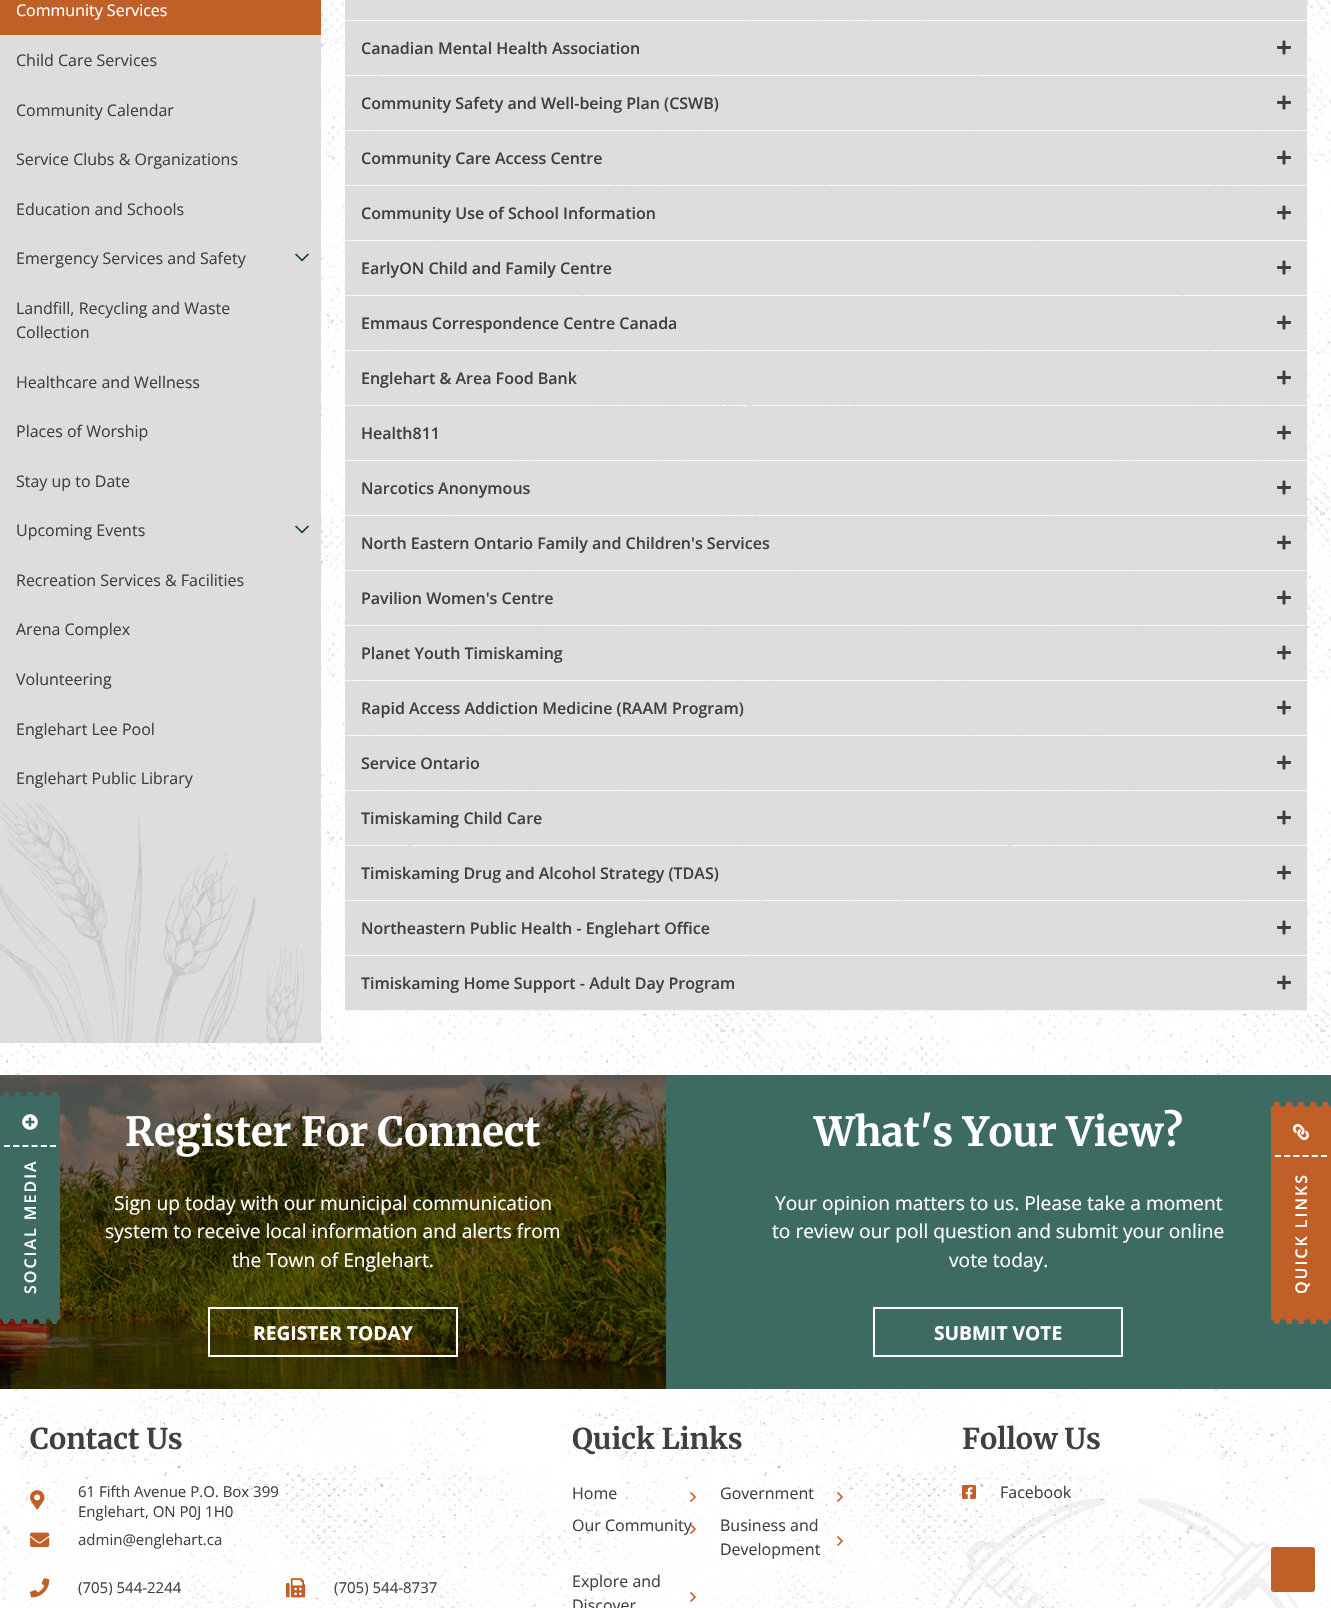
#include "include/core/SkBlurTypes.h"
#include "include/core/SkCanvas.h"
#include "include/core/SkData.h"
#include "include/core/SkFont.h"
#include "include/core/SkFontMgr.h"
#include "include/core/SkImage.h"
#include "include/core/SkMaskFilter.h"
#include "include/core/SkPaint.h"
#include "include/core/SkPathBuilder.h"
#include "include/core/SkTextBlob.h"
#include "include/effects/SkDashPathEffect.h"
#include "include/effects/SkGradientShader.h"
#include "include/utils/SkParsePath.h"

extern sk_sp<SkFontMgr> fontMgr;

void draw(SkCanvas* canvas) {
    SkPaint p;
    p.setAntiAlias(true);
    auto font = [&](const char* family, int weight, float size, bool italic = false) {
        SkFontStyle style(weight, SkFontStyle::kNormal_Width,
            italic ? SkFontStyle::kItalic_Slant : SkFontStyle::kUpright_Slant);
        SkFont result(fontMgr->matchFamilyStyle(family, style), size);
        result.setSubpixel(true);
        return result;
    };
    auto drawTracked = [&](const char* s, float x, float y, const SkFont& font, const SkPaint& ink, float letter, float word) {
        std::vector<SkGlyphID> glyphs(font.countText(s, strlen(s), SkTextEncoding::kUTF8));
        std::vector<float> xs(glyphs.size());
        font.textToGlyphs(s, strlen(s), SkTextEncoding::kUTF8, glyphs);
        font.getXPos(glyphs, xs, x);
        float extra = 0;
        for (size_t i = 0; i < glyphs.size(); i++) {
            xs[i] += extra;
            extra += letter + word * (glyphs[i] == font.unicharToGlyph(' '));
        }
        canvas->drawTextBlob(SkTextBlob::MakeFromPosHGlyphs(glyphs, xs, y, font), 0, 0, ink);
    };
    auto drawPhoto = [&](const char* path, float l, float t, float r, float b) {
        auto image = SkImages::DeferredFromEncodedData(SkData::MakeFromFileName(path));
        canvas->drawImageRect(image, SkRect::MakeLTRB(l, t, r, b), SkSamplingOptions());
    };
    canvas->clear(0xFFFFFFFF);
    drawPhoto("media/1.png", 0, 0, 1331, 1075);
    p.setColor(0xFFDDDDDD);
    canvas->drawRect(SkRect::MakeLTRB(0, 35, 321, 1043), p);
    p.setColor(0xFFC05F28);
    canvas->drawRect(SkRect::MakeLTRB(0, 0, 321, 35), p);
    auto font1 = font("Open Sans", 400, 16);
    p.setColor(0xFFFFFFFF);
    canvas->drawString("Community Services", 16, 16, font1, p);
    p.setColor(0xFF404040);
    {
        const struct { const char* s; float x, y; } items[] = {
            {"Child Care Services", 16, 66},
            {"Community Calendar", 16, 116},
            {"Service Clubs & Organizations", 16, 165},
            {"Education and Schools", 16, 215},
            {"Emergency Services and Safety", 16, 264},
        };
        for (auto [s, x, y] : items) {
            canvas->drawString(s, x, y, font1, p);
        }
    }
    drawPhoto("media/2.png", 295, 253, 309, 262);
    {
        const struct { const char* s; float x, y; } items[] = {
            {"Landfill, Recycling and Waste", 16, 314},
            {"Collection", 16, 338},
            {"Healthcare and Wellness", 16, 388},
            {"Places of Worship", 16, 437},
            {"Stay up to Date", 16, 487},
            {"Upcoming Events", 16, 536},
        };
        for (auto [s, x, y] : items) {
            canvas->drawString(s, x, y, font1, p);
        }
    }
    drawPhoto("media/2.png", 295, 525, 309, 534);
    {
        const struct { const char* s; float x, y; } items[] = {
            {"Recreation Services & Facilities", 16, 586},
            {"Arena Complex", 16, 635},
            {"Volunteering", 16, 685},
            {"Englehart Lee Pool", 16, 735},
            {"Englehart Public Library", 16, 784},
        };
        for (auto [s, x, y] : items) {
            canvas->drawString(s, x, y, font1, p);
        }
    }
    drawPhoto("media/3.png", 0, 803, 304, 1043);
    p.setStyle(SkPaint::kStroke_Style);
    p.setStrokeWidth(1);
    p.setColor(0xFFF0F0F0);
    p.setPathEffect(SkDashPathEffect::Make({{1, 1}}, 0));
    canvas->drawPath(SkPathBuilder().moveTo(345, 20.5f).lineTo(1307, 20.5f).detach(), p);
    p.setPathEffect(nullptr);
    p.setStyle(SkPaint::kFill_Style);
    p.setColor(0xFFDDDDDD);
    canvas->drawRect(SkRect::MakeLTRB(345, 0, 1307, 20), p);
    p.setStyle(SkPaint::kStroke_Style);
    p.setColor(0xFFF0F0F0);
    p.setPathEffect(SkDashPathEffect::Make({{1, 1}}, 0));
    canvas->drawPath(SkPathBuilder().moveTo(345, 75.5f).lineTo(1307, 75.5f).detach(), p);
    p.setPathEffect(nullptr);
    p.setStyle(SkPaint::kFill_Style);
    p.setColor(0xFFDDDDDD);
    canvas->drawRect(SkRect::MakeLTRB(345, 21, 1307, 75), p);
    auto font2 = font("Open Sans", 600, 16);
    p.setColor(0xFF404040);
    canvas->drawString("Canadian Mental Health Association", 361, 54, font2, p);
    drawPhoto("media/4.png", 1277, 40, 1291, 55);
    p.setStyle(SkPaint::kStroke_Style);
    p.setColor(0xFFF0F0F0);
    p.setPathEffect(SkDashPathEffect::Make({{1, 1}}, 0));
    canvas->drawPath(SkPathBuilder().moveTo(345, 130.5f).lineTo(1307, 130.5f).detach(), p);
    p.setPathEffect(nullptr);
    p.setStyle(SkPaint::kFill_Style);
    p.setColor(0xFFDDDDDD);
    canvas->drawRect(SkRect::MakeLTRB(345, 76, 1307, 130), p);
    p.setColor(0xFF404040);
    canvas->drawString("Community Safety and Well-being Plan (CSWB)", 361, 109, font2, p);
    drawPhoto("media/4.png", 1277, 95, 1291, 110);
    p.setStyle(SkPaint::kStroke_Style);
    p.setColor(0xFFF0F0F0);
    p.setPathEffect(SkDashPathEffect::Make({{1, 1}}, 0));
    canvas->drawPath(SkPathBuilder().moveTo(345, 185.5f).lineTo(1307, 185.5f).detach(), p);
    p.setPathEffect(nullptr);
    p.setStyle(SkPaint::kFill_Style);
    p.setColor(0xFFDDDDDD);
    canvas->drawRect(SkRect::MakeLTRB(345, 131, 1307, 185), p);
    p.setColor(0xFF404040);
    canvas->drawString("Community Care Access Centre", 361, 164, font2, p);
    drawPhoto("media/4.png", 1277, 150, 1291, 165);
    p.setStyle(SkPaint::kStroke_Style);
    p.setColor(0xFFF0F0F0);
    p.setPathEffect(SkDashPathEffect::Make({{1, 1}}, 0));
    canvas->drawPath(SkPathBuilder().moveTo(345, 240.5f).lineTo(1307, 240.5f).detach(), p);
    p.setPathEffect(nullptr);
    p.setStyle(SkPaint::kFill_Style);
    p.setColor(0xFFDDDDDD);
    canvas->drawRect(SkRect::MakeLTRB(345, 186, 1307, 240), p);
    p.setColor(0xFF404040);
    canvas->drawString("Community Use of School Information", 361, 219, font2, p);
    drawPhoto("media/4.png", 1277, 205, 1291, 220);
    p.setStyle(SkPaint::kStroke_Style);
    p.setColor(0xFFF0F0F0);
    p.setPathEffect(SkDashPathEffect::Make({{1, 1}}, 0));
    canvas->drawPath(SkPathBuilder().moveTo(345, 295.5f).lineTo(1307, 295.5f).detach(), p);
    p.setPathEffect(nullptr);
    p.setStyle(SkPaint::kFill_Style);
    p.setColor(0xFFDDDDDD);
    canvas->drawRect(SkRect::MakeLTRB(345, 241, 1307, 295), p);
    p.setColor(0xFF404040);
    canvas->drawString("EarlyON Child and Family Centre", 361, 274, font2, p);
    drawPhoto("media/4.png", 1277, 260, 1291, 275);
    p.setStyle(SkPaint::kStroke_Style);
    p.setColor(0xFFF0F0F0);
    p.setPathEffect(SkDashPathEffect::Make({{1, 1}}, 0));
    canvas->drawPath(SkPathBuilder().moveTo(345, 350.5f).lineTo(1307, 350.5f).detach(), p);
    p.setPathEffect(nullptr);
    p.setStyle(SkPaint::kFill_Style);
    p.setColor(0xFFDDDDDD);
    canvas->drawRect(SkRect::MakeLTRB(345, 296, 1307, 350), p);
    p.setColor(0xFF404040);
    canvas->drawString("Emmaus Correspondence Centre Canada", 361, 329, font2, p);
    drawPhoto("media/4.png", 1277, 315, 1291, 330);
    p.setStyle(SkPaint::kStroke_Style);
    p.setColor(0xFFF0F0F0);
    p.setPathEffect(SkDashPathEffect::Make({{1, 1}}, 0));
    canvas->drawPath(SkPathBuilder().moveTo(345, 405.5f).lineTo(1307, 405.5f).detach(), p);
    p.setPathEffect(nullptr);
    p.setStyle(SkPaint::kFill_Style);
    p.setColor(0xFFDDDDDD);
    canvas->drawRect(SkRect::MakeLTRB(345, 351, 1307, 405), p);
    p.setColor(0xFF404040);
    canvas->drawString("Englehart & Area Food Bank", 361, 384, font2, p);
    drawPhoto("media/4.png", 1277, 370, 1291, 385);
    p.setStyle(SkPaint::kStroke_Style);
    p.setColor(0xFFF0F0F0);
    p.setPathEffect(SkDashPathEffect::Make({{1, 1}}, 0));
    canvas->drawPath(SkPathBuilder().moveTo(345, 460.5f).lineTo(1307, 460.5f).detach(), p);
    p.setPathEffect(nullptr);
    p.setStyle(SkPaint::kFill_Style);
    p.setColor(0xFFDDDDDD);
    canvas->drawRect(SkRect::MakeLTRB(345, 406, 1307, 460), p);
    p.setColor(0xFF404040);
    canvas->drawString("Health811", 361, 439, font2, p);
    drawPhoto("media/4.png", 1277, 425, 1291, 440);
    p.setStyle(SkPaint::kStroke_Style);
    p.setColor(0xFFF0F0F0);
    p.setPathEffect(SkDashPathEffect::Make({{1, 1}}, 0));
    canvas->drawPath(SkPathBuilder().moveTo(345, 515.5f).lineTo(1307, 515.5f).detach(), p);
    p.setPathEffect(nullptr);
    p.setStyle(SkPaint::kFill_Style);
    p.setColor(0xFFDDDDDD);
    canvas->drawRect(SkRect::MakeLTRB(345, 461, 1307, 515), p);
    p.setColor(0xFF404040);
    canvas->drawString("Narcotics Anonymous", 361, 494, font2, p);
    drawPhoto("media/4.png", 1277, 480, 1291, 495);
    p.setStyle(SkPaint::kStroke_Style);
    p.setColor(0xFFF0F0F0);
    p.setPathEffect(SkDashPathEffect::Make({{1, 1}}, 0));
    canvas->drawPath(SkPathBuilder().moveTo(345, 570.5f).lineTo(1307, 570.5f).detach(), p);
    p.setPathEffect(nullptr);
    p.setStyle(SkPaint::kFill_Style);
    p.setColor(0xFFDDDDDD);
    canvas->drawRect(SkRect::MakeLTRB(345, 516, 1307, 570), p);
    p.setColor(0xFF404040);
    canvas->drawString("North Eastern Ontario Family and Children's Services", 361, 549, font2, p);
    drawPhoto("media/4.png", 1277, 535, 1291, 550);
    p.setStyle(SkPaint::kStroke_Style);
    p.setColor(0xFFF0F0F0);
    p.setPathEffect(SkDashPathEffect::Make({{1, 1}}, 0));
    canvas->drawPath(SkPathBuilder().moveTo(345, 625.5f).lineTo(1307, 625.5f).detach(), p);
    p.setPathEffect(nullptr);
    p.setStyle(SkPaint::kFill_Style);
    p.setColor(0xFFDDDDDD);
    canvas->drawRect(SkRect::MakeLTRB(345, 571, 1307, 625), p);
    p.setColor(0xFF404040);
    canvas->drawString("Pavilion Women's Centre", 361, 604, font2, p);
    drawPhoto("media/4.png", 1277, 590, 1291, 605);
    p.setStyle(SkPaint::kStroke_Style);
    p.setColor(0xFFF0F0F0);
    p.setPathEffect(SkDashPathEffect::Make({{1, 1}}, 0));
    canvas->drawPath(SkPathBuilder().moveTo(345, 680.5f).lineTo(1307, 680.5f).detach(), p);
    p.setPathEffect(nullptr);
    p.setStyle(SkPaint::kFill_Style);
    p.setColor(0xFFDDDDDD);
    canvas->drawRect(SkRect::MakeLTRB(345, 626, 1307, 680), p);
    p.setColor(0xFF404040);
    canvas->drawString("Planet Youth Timiskaming", 361, 659, font2, p);
    drawPhoto("media/4.png", 1277, 645, 1291, 660);
    p.setStyle(SkPaint::kStroke_Style);
    p.setColor(0xFFF0F0F0);
    p.setPathEffect(SkDashPathEffect::Make({{1, 1}}, 0));
    canvas->drawPath(SkPathBuilder().moveTo(345, 735.5f).lineTo(1307, 735.5f).detach(), p);
    p.setPathEffect(nullptr);
    p.setStyle(SkPaint::kFill_Style);
    p.setColor(0xFFDDDDDD);
    canvas->drawRect(SkRect::MakeLTRB(345, 681, 1307, 735), p);
    p.setColor(0xFF404040);
    canvas->drawString("Rapid Access Addiction Medicine (RAAM Program)", 361, 714, font2, p);
    drawPhoto("media/4.png", 1277, 700, 1291, 715);
    p.setStyle(SkPaint::kStroke_Style);
    p.setColor(0xFFF0F0F0);
    p.setPathEffect(SkDashPathEffect::Make({{1, 1}}, 0));
    canvas->drawPath(SkPathBuilder().moveTo(345, 790.5f).lineTo(1307, 790.5f).detach(), p);
    p.setPathEffect(nullptr);
    p.setStyle(SkPaint::kFill_Style);
    p.setColor(0xFFDDDDDD);
    canvas->drawRect(SkRect::MakeLTRB(345, 736, 1307, 790), p);
    p.setColor(0xFF404040);
    canvas->drawString("Service Ontario", 361, 769, font2, p);
    drawPhoto("media/4.png", 1277, 755, 1291, 770);
    p.setStyle(SkPaint::kStroke_Style);
    p.setColor(0xFFF0F0F0);
    p.setPathEffect(SkDashPathEffect::Make({{1, 1}}, 0));
    canvas->drawPath(SkPathBuilder().moveTo(345, 845.5f).lineTo(1307, 845.5f).detach(), p);
    p.setPathEffect(nullptr);
    p.setStyle(SkPaint::kFill_Style);
    p.setColor(0xFFDDDDDD);
    canvas->drawRect(SkRect::MakeLTRB(345, 791, 1307, 845), p);
    p.setColor(0xFF404040);
    canvas->drawString("Timiskaming Child Care", 361, 824, font2, p);
    drawPhoto("media/4.png", 1277, 810, 1291, 825);
    p.setStyle(SkPaint::kStroke_Style);
    p.setColor(0xFFF0F0F0);
    p.setPathEffect(SkDashPathEffect::Make({{1, 1}}, 0));
    canvas->drawPath(SkPathBuilder().moveTo(345, 900.5f).lineTo(1307, 900.5f).detach(), p);
    p.setPathEffect(nullptr);
    p.setStyle(SkPaint::kFill_Style);
    p.setColor(0xFFDDDDDD);
    canvas->drawRect(SkRect::MakeLTRB(345, 846, 1307, 900), p);
    p.setColor(0xFF404040);
    canvas->drawString("Timiskaming Drug and Alcohol Strategy (TDAS)", 361, 879, font2, p);
    drawPhoto("media/4.png", 1277, 865, 1291, 880);
    p.setStyle(SkPaint::kStroke_Style);
    p.setColor(0xFFF0F0F0);
    p.setPathEffect(SkDashPathEffect::Make({{1, 1}}, 0));
    canvas->drawPath(SkPathBuilder().moveTo(345, 955.5f).lineTo(1307, 955.5f).detach(), p);
    p.setPathEffect(nullptr);
    p.setStyle(SkPaint::kFill_Style);
    p.setColor(0xFFDDDDDD);
    canvas->drawRect(SkRect::MakeLTRB(345, 901, 1307, 955), p);
    p.setColor(0xFF404040);
    canvas->drawString("Northeastern Public Health - Englehart Office", 361, 934, font2, p);
    drawPhoto("media/4.png", 1277, 920, 1291, 935);
    p.setStyle(SkPaint::kStroke_Style);
    p.setColor(0xFFF0F0F0);
    p.setPathEffect(SkDashPathEffect::Make({{1, 1}}, 0));
    canvas->drawPath(SkPathBuilder().moveTo(345, 1010.5f).lineTo(1307, 1010.5f).detach(), p);
    p.setPathEffect(nullptr);
    p.setStyle(SkPaint::kFill_Style);
    p.setColor(0xFFDDDDDD);
    canvas->drawRect(SkRect::MakeLTRB(345, 956, 1307, 1010), p);
    p.setColor(0xFF404040);
    canvas->drawString("Timiskaming Home Support - Adult Day Program", 361, 989, font2, p);
    drawPhoto("media/4.png", 1277, 975, 1291, 990);
    drawPhoto("media/5.png", 0, 1075, 666, 1389);
    auto font3 = font("Merriweather", 700, 40);
    p.setColor(0xFFFFFFFF);
    canvas->drawString("Register For Connect", 125, 1146, font3, p);
    auto font4 = font("Open Sans", 400, 19.2f);
    {
        const struct { const char* s; float x, y; } items[] = {
            {"Sign up today with our municipal communication", 114, 1210},
            {"system to receive local information and alerts from", 105, 1238},
            {"the Town of Englehart.", 232, 1267},
        };
        for (auto [s, x, y] : items) {
            canvas->drawString(s, x, y, font4, p);
        }
    }
    p.setStyle(SkPaint::kStroke_Style);
    p.setStrokeWidth(2);
    canvas->drawRect(SkRect::MakeLTRB(209, 1308, 457, 1356), p);
    auto font5 = font("Open Sans", 700, 19.2f);
    p.setStyle(SkPaint::kFill_Style);
    canvas->drawString("REGISTER TODAY", 253, 1340, font5, p);
    p.setColor(0xFF3D6B61);
    canvas->drawRect(SkRect::MakeLTRB(666, 1075, 1331, 1389), p);
    p.setColor(0xFFFFFFFF);
    canvas->drawString("What's Your View?", 814, 1146, font3, p);
    {
        const struct { const char* s; float x, y; } items[] = {
            {"Your opinion matters to us. Please take a moment", 775, 1210},
            {"to review our poll question and submit your online", 772, 1238},
            {"vote today.", 949, 1267},
        };
        for (auto [s, x, y] : items) {
            canvas->drawString(s, x, y, font4, p);
        }
    }
    p.setStyle(SkPaint::kStroke_Style);
    canvas->drawRect(SkRect::MakeLTRB(874, 1308, 1122, 1356), p);
    p.setStyle(SkPaint::kFill_Style);
    canvas->drawString("SUBMIT VOTE", 934, 1340, font5, p);
    drawPhoto("media/6.png", 0, 1389, 1331, 1608);
    auto font6 = font("Merriweather", 700, 28.75f);
    p.setColor(0xFF404040);
    canvas->drawString("Contact Us", 30, 1449, font6, p);
    drawPhoto("media/7.png", 30, 1490, 45, 1510);
    auto font7 = font("Open Sans", 400, 15);
    canvas->drawString("61 Fifth Avenue P.O. Box 399", 78, 1497, font7, p);
    canvas->drawString("Englehart, ON P0J 1H0", 78, 1517, font7, p);
    drawPhoto("media/8.png", 30, 1532, 50, 1547);
    canvas->drawString("admin@englehart.ca", 78, 1545, font7, p);
    drawPhoto("media/9.png", 30, 1578, 50, 1598);
    canvas->drawString("(705) 544-2244", 78, 1593, font7, p);
    drawPhoto("media/10.png", 286, 1578, 306, 1598);
    canvas->drawString("(705) 544-8737", 334, 1593, font7, p);
    canvas->drawString("Quick Links", 572, 1449, font6, p);
    canvas->drawString("Home", 572, 1499, font1, p);
    drawPhoto("media/11.png", 690, 1492, 696, 1502);
    canvas->drawString("Government", 720, 1499, font1, p);
    drawPhoto("media/12.png", 837, 1492, 843, 1502);
    canvas->drawString("Our Community", 572, 1531, font1, p);
    drawPhoto("media/13.png", 690, 1524, 696, 1534);
    canvas->drawString("Business and", 720, 1531, font1, p);
    drawPhoto("media/14.png", 837, 1536, 843, 1546);
    canvas->drawString("Development", 720, 1555, font1, p);
    canvas->drawString("Explore and", 572, 1587, font1, p);
    drawPhoto("media/15.png", 690, 1592, 696, 1602);
    canvas->drawString("Discover", 572, 1611, font1, p);
    canvas->drawString("Follow Us", 962, 1449, font6, p);
    drawPhoto("media/17.png", 946, 1498, 1298, 1608);
    drawPhoto("media/16.png", 962, 1485, 976, 1499);
    canvas->drawString("Facebook", 1000, 1498, font1, p);
    p.setColor(0xFF3D6B61);
    canvas->drawRect(SkRect::MakeLTRB(0, 1098, 60, 1318), p);
    drawPhoto("media/18.png", 0, 1092, 60, 1098);
    p.setStyle(SkPaint::kStroke_Style);
    p.setColor(0xFFFFFFFF);
    p.setPathEffect(SkDashPathEffect::Make({{6, 3.2f}}, 0));
    canvas->drawPath(SkPathBuilder().moveTo(4, 1146).lineTo(56, 1146).detach(), p);
    p.setPathEffect(nullptr);
    drawPhoto("media/19.png", 22, 1114, 38, 1130);
    p.setStyle(SkPaint::kFill_Style);
    canvas->save();
    canvas->rotate(-90, 36, 1294);
    drawTracked("SOCIAL MEDIA", 36, 1294, font2, p, 2, 0);
    canvas->restore();
    drawPhoto("media/20.png", 0, 1318, 60, 1324);
    p.setColor(0xFFC05F28);
    canvas->drawRect(SkRect::MakeLTRB(1271, 1108, 1331, 1318), p);
    drawPhoto("media/21.png", 1271, 1102, 1331, 1108);
    p.setStyle(SkPaint::kStroke_Style);
    p.setColor(0xFFFFFFFF);
    p.setPathEffect(SkDashPathEffect::Make({{6, 3.2f}}, 0));
    canvas->drawPath(SkPathBuilder().moveTo(1275, 1156).lineTo(1327, 1156).detach(), p);
    p.setPathEffect(nullptr);
    drawPhoto("media/22.png", 1293, 1124, 1309, 1140);
    p.setStyle(SkPaint::kFill_Style);
    canvas->save();
    canvas->rotate(-90, 1307, 1294);
    drawTracked("QUICK LINKS", 1307, 1294, font2, p, 2, 0);
    canvas->restore();
    drawPhoto("media/23.png", 1271, 1318, 1331, 1324);
    p.setColor(0xFFC05F28);
    canvas->drawRoundRect(SkRect::MakeLTRB(1271, 1547, 1315, 1592), 3, 3, p);
}
